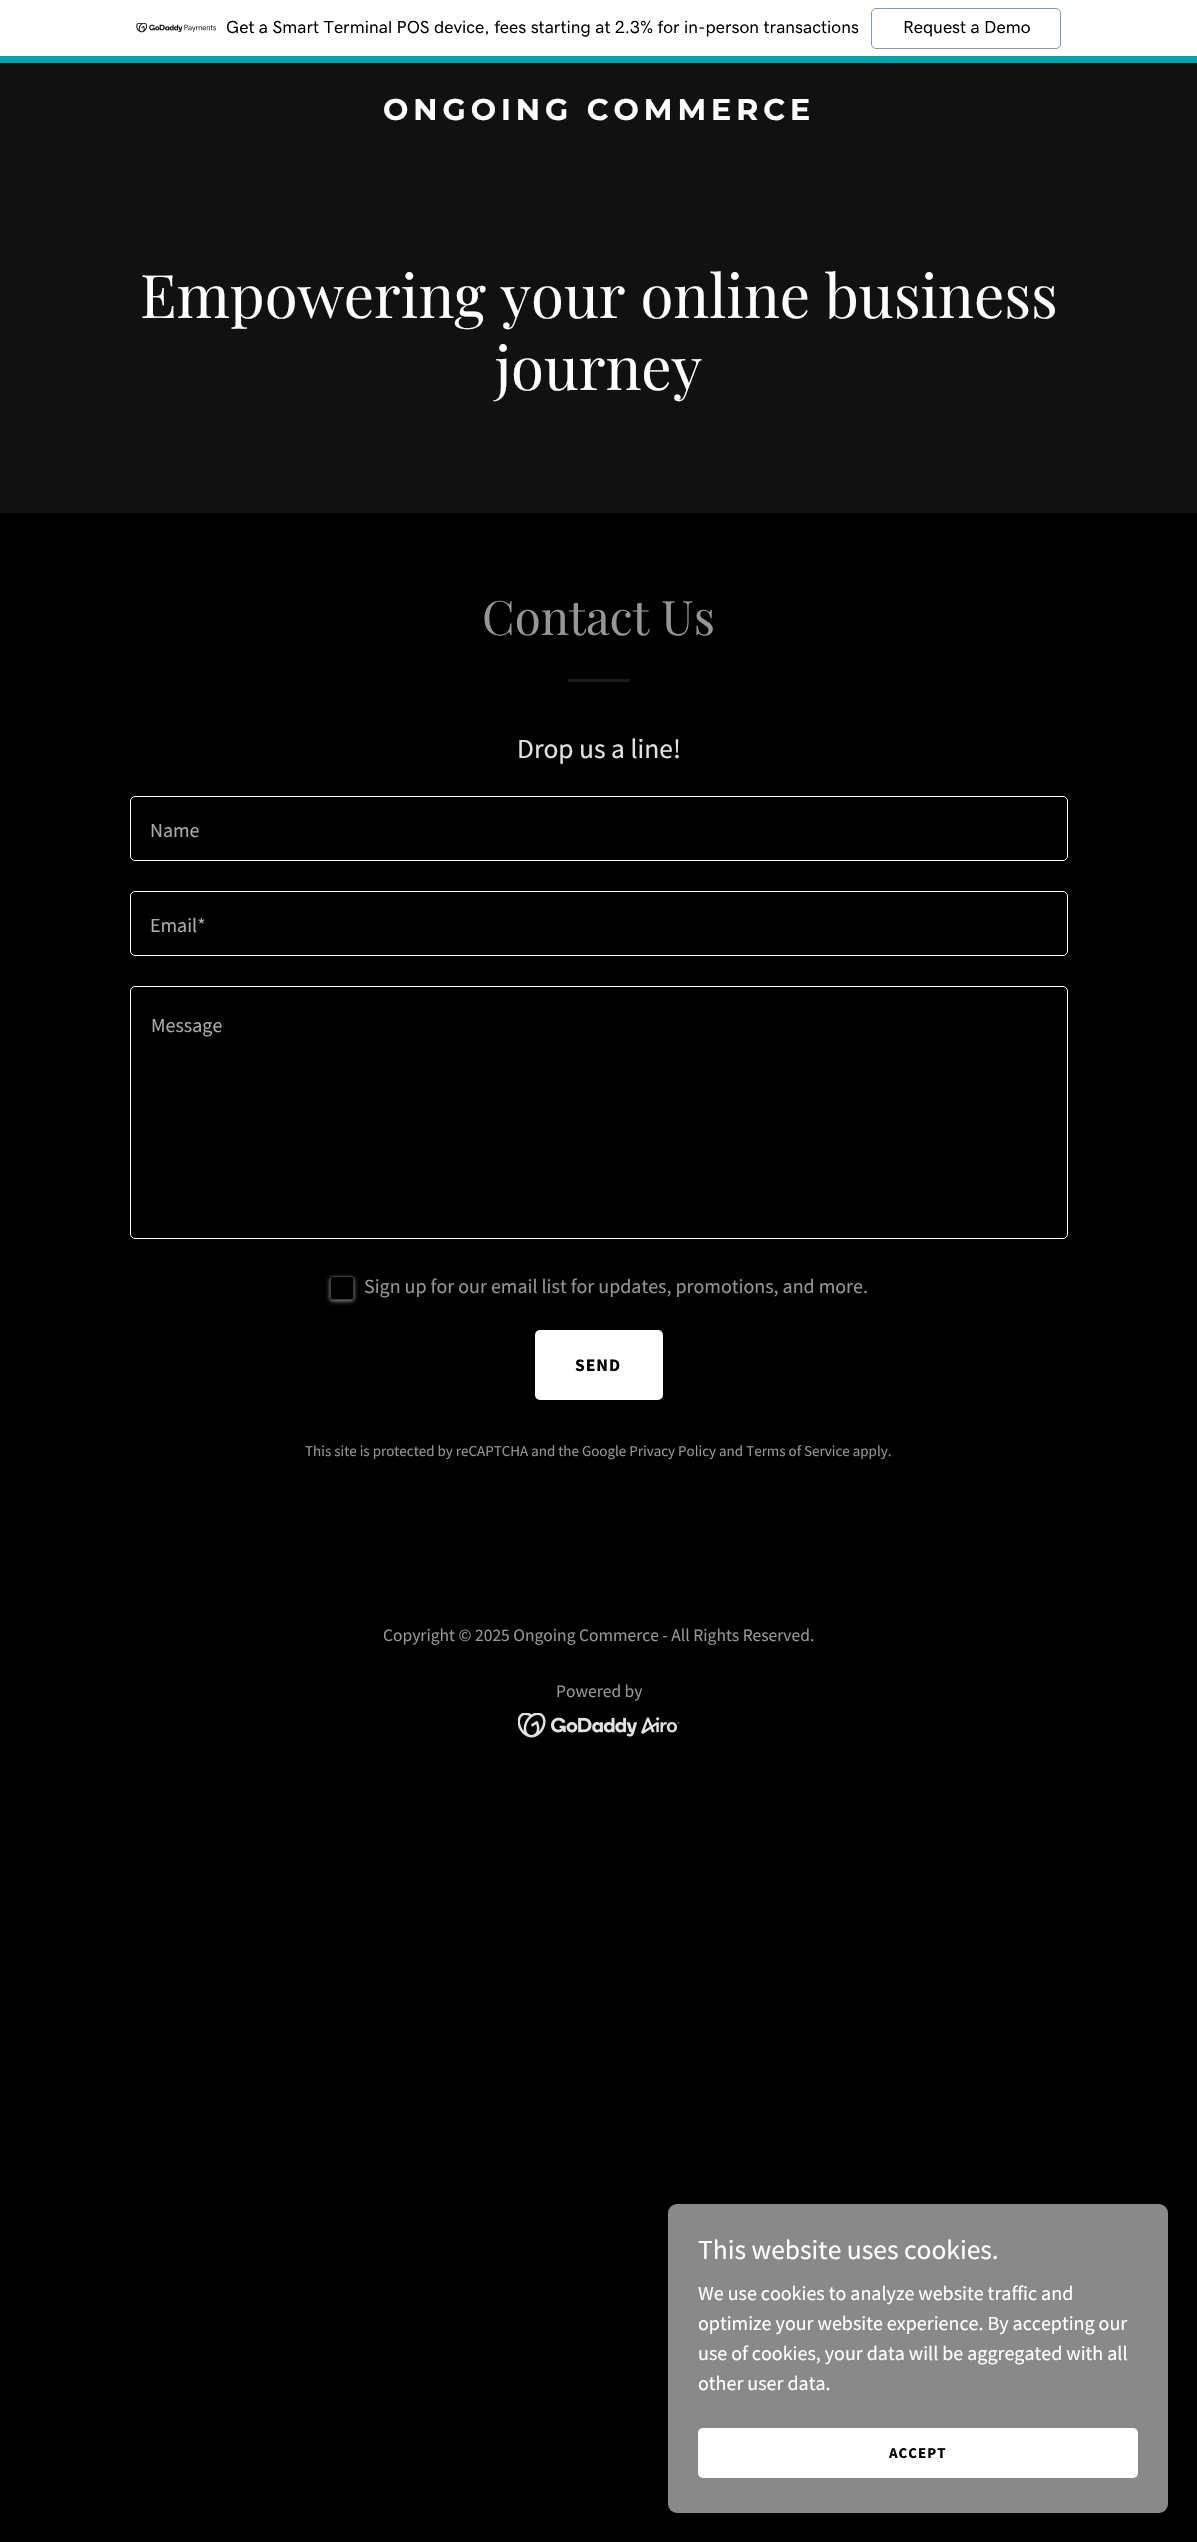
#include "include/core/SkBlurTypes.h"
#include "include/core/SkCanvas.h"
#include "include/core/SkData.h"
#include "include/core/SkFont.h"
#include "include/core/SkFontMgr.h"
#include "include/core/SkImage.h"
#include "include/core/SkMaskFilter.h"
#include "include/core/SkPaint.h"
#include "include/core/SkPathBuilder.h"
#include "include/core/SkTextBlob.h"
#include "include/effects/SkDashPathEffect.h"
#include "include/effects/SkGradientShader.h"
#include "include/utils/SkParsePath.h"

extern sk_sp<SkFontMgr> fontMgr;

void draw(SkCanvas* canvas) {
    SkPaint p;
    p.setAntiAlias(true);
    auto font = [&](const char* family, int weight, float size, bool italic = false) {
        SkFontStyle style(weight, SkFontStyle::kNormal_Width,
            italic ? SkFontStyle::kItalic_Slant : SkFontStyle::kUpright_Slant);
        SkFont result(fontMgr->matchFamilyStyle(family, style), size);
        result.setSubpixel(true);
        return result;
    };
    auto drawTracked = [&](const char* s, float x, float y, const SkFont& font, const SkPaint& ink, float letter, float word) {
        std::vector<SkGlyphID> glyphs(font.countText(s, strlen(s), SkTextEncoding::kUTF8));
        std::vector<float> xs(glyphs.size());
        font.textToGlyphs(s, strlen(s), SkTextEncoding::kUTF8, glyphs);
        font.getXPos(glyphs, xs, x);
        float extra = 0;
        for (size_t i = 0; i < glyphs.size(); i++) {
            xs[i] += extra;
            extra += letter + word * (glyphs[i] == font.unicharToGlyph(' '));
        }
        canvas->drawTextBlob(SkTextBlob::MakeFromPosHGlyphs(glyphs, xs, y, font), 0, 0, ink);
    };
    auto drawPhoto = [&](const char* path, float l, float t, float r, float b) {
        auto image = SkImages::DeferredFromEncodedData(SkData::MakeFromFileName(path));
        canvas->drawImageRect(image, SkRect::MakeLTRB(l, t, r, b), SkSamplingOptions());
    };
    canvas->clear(0xFF000000);
    p.setColor(0xFFFFFFFF);
    canvas->drawRect(SkRect::MakeLTRB(0, 0, 1197, 56), p);
    p.setColor(0xFF00A4A6);
    canvas->drawRect(SkRect::MakeLTRB(0, 56, 1197, 63), p);
    drawPhoto("media/1.png", 136, 23, 216, 33);
    auto font1 = font("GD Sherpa", 500, 17.5f);
    p.setColor(0xFF000000);
    canvas->drawString("Get a Smart Terminal POS device, fees starting at 2.3% for in-person transactions", 226, 33, font1, p);
    p.setStyle(SkPaint::kStroke_Style);
    p.setStrokeWidth(1);
    p.setColor(0xFF8995A9);
    canvas->drawRoundRect(SkRect::MakeLTRB(871.5f, 8.5f, 1060.5f, 48.5f), 4.5f, 4.5f, p);
    p.setStyle(SkPaint::kFill_Style);
    p.setColor(0xFF000000);
    canvas->drawString("Request a Demo", 903, 33, font1, p);
    p.setColor(0xFF111111);
    canvas->drawRect(SkRect::MakeLTRB(0, 63, 1197, 513), p);
    auto font2 = font("Montserrat", 700, 30);
    p.setColor(0xFFFFFFFF);
    drawTracked("ONGOING COMMERCE", 383, 120, font2, p, 5, 0);
    auto font3 = font("Playfair Display", 400, 60);
    canvas->drawString("Empowering your online business", 140, 318, font3, p);
    canvas->drawString("journey", 495, 390, font3, p);
    auto font4 = font("Playfair Display", 400, 47.5f);
    p.setColor(0xFF969696);
    canvas->drawString("Contact Us", 482, 635, font4, p);
    p.setColor(0xFF1B1B1B);
    canvas->drawRect(SkRect::MakeLTRB(568, 679, 630, 682), p);
    auto font5 = font("Source Sans Pro", 400, 27.5f);
    p.setColor(0xFFE2E2E2);
    canvas->drawString("Drop us a line!", 517, 758, font5, p);
    p.setStyle(SkPaint::kStroke_Style);
    p.setColor(0xFFFFFFFF);
    canvas->drawRoundRect(SkRect::MakeLTRB(130.5f, 796.5f, 1067.5f, 860.5f), 4.5f, 4.5f, p);
    auto font6 = font("Source Sans Pro", 400, 20);
    p.setStyle(SkPaint::kFill_Style);
    p.setColor(0xFFABABAB);
    canvas->drawString("Name", 150, 837, font6, p);
    p.setStyle(SkPaint::kStroke_Style);
    p.setColor(0xFFFFFFFF);
    canvas->drawRoundRect(SkRect::MakeLTRB(130.5f, 891.5f, 1067.5f, 955.5f), 4.5f, 4.5f, p);
    p.setStyle(SkPaint::kFill_Style);
    p.setColor(0xFFABABAB);
    canvas->drawString("Email*", 150, 932, font6, p);
    p.setStyle(SkPaint::kStroke_Style);
    p.setColor(0xFFFFFFFF);
    canvas->drawRoundRect(SkRect::MakeLTRB(130.5f, 986.5f, 1067.5f, 1238.5f), 4.5f, 4.5f, p);
    p.setStyle(SkPaint::kFill_Style);
    p.setColor(0xFFABABAB);
    canvas->drawString("Message", 151, 1032, font6, p);
    canvas->save();
    canvas->clipPath(SkPathBuilder(SkPathFillType::kEvenOdd).moveTo(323, 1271).lineTo(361, 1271).lineTo(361, 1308).lineTo(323, 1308).close().moveTo(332.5f, 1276).lineTo(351.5f, 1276).cubicTo(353, 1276, 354, 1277, 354, 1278.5f).lineTo(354, 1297.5f).cubicTo(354, 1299, 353, 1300, 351.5f, 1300).lineTo(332.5f, 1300).cubicTo(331, 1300, 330, 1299, 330, 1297.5f).lineTo(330, 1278.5f).cubicTo(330, 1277, 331, 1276, 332.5f, 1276).close().detach(), true);
    p.setColor(0xFF969696);
    p.setMaskFilter(SkMaskFilter::MakeBlur(kNormal_SkBlurStyle, 2));
    canvas->drawRoundRect(SkRect::MakeLTRB(330, 1278, 354, 1301), 2.5f, 2.5f, p);
    p.setMaskFilter(nullptr);
    canvas->restore();
    p.setStyle(SkPaint::kStroke_Style);
    p.setColor(0x80777777);
    canvas->drawRoundRect(SkRect::MakeLTRB(330.5f, 1276.5f, 353.5f, 1299.5f), 2, 2, p);
    p.setStyle(SkPaint::kFill_Style);
    p.setColor(0xFF969696);
    canvas->drawString("Sign up for our email list for updates, promotions, and more.", 364, 1293, font6, p);
    p.setColor(0xFFFFFFFF);
    canvas->drawRoundRect(SkRect::MakeLTRB(535, 1330, 663, 1400), 5, 5, p);
    auto font7 = font("Source Sans Pro", 700, 17.5f);
    p.setColor(0xFF000000);
    drawTracked("SEND", 575, 1371, font7, p, 1, 0);
    auto font8 = font("Source Sans Pro", 400, 15);
    p.setColor(0xFF969696);
    canvas->drawString("This site is protected by reCAPTCHA and the Google Privacy Policy and Terms of Service apply.", 305, 1456, font8, p);
    auto font9 = font("Source Sans Pro", 400, 17.5f);
    canvas->drawString("Copyright © 2025 Ongoing Commerce - All Rights Reserved.", 383, 1641, font9, p);
    canvas->drawString("Powered by", 556, 1697, font9, p);
    drawPhoto("media/2.png", 518, 1713, 680, 1738);
    p.setColor(0xFF898989);
    canvas->drawRoundRect(SkRect::MakeLTRB(668, 2204, 1168, 2513), 9, 9, p);
    p.setColor(0xFFFFFFFF);
    canvas->drawString("This website uses cookies.", 698, 2259, font5, p);
    {
        const struct { const char* s; float x, y; } items[] = {
            {"We use cookies to analyze website traffic and", 698, 2300},
            {"optimize your website experience. By accepting our", 698, 2330},
            {"use of cookies, your data will be aggregated with all", 698, 2360},
            {"other user data.", 698, 2390},
        };
        for (auto [s, x, y] : items) {
            canvas->drawString(s, x, y, font6, p);
        }
    }
    canvas->drawRoundRect(SkRect::MakeLTRB(698, 2428, 1138, 2478), 5, 5, p);
    auto font10 = font("Source Sans Pro", 700, 15);
    p.setColor(0xFF000000);
    drawTracked("ACCEPT", 889, 2458, font10, p, 1, 0);
}
